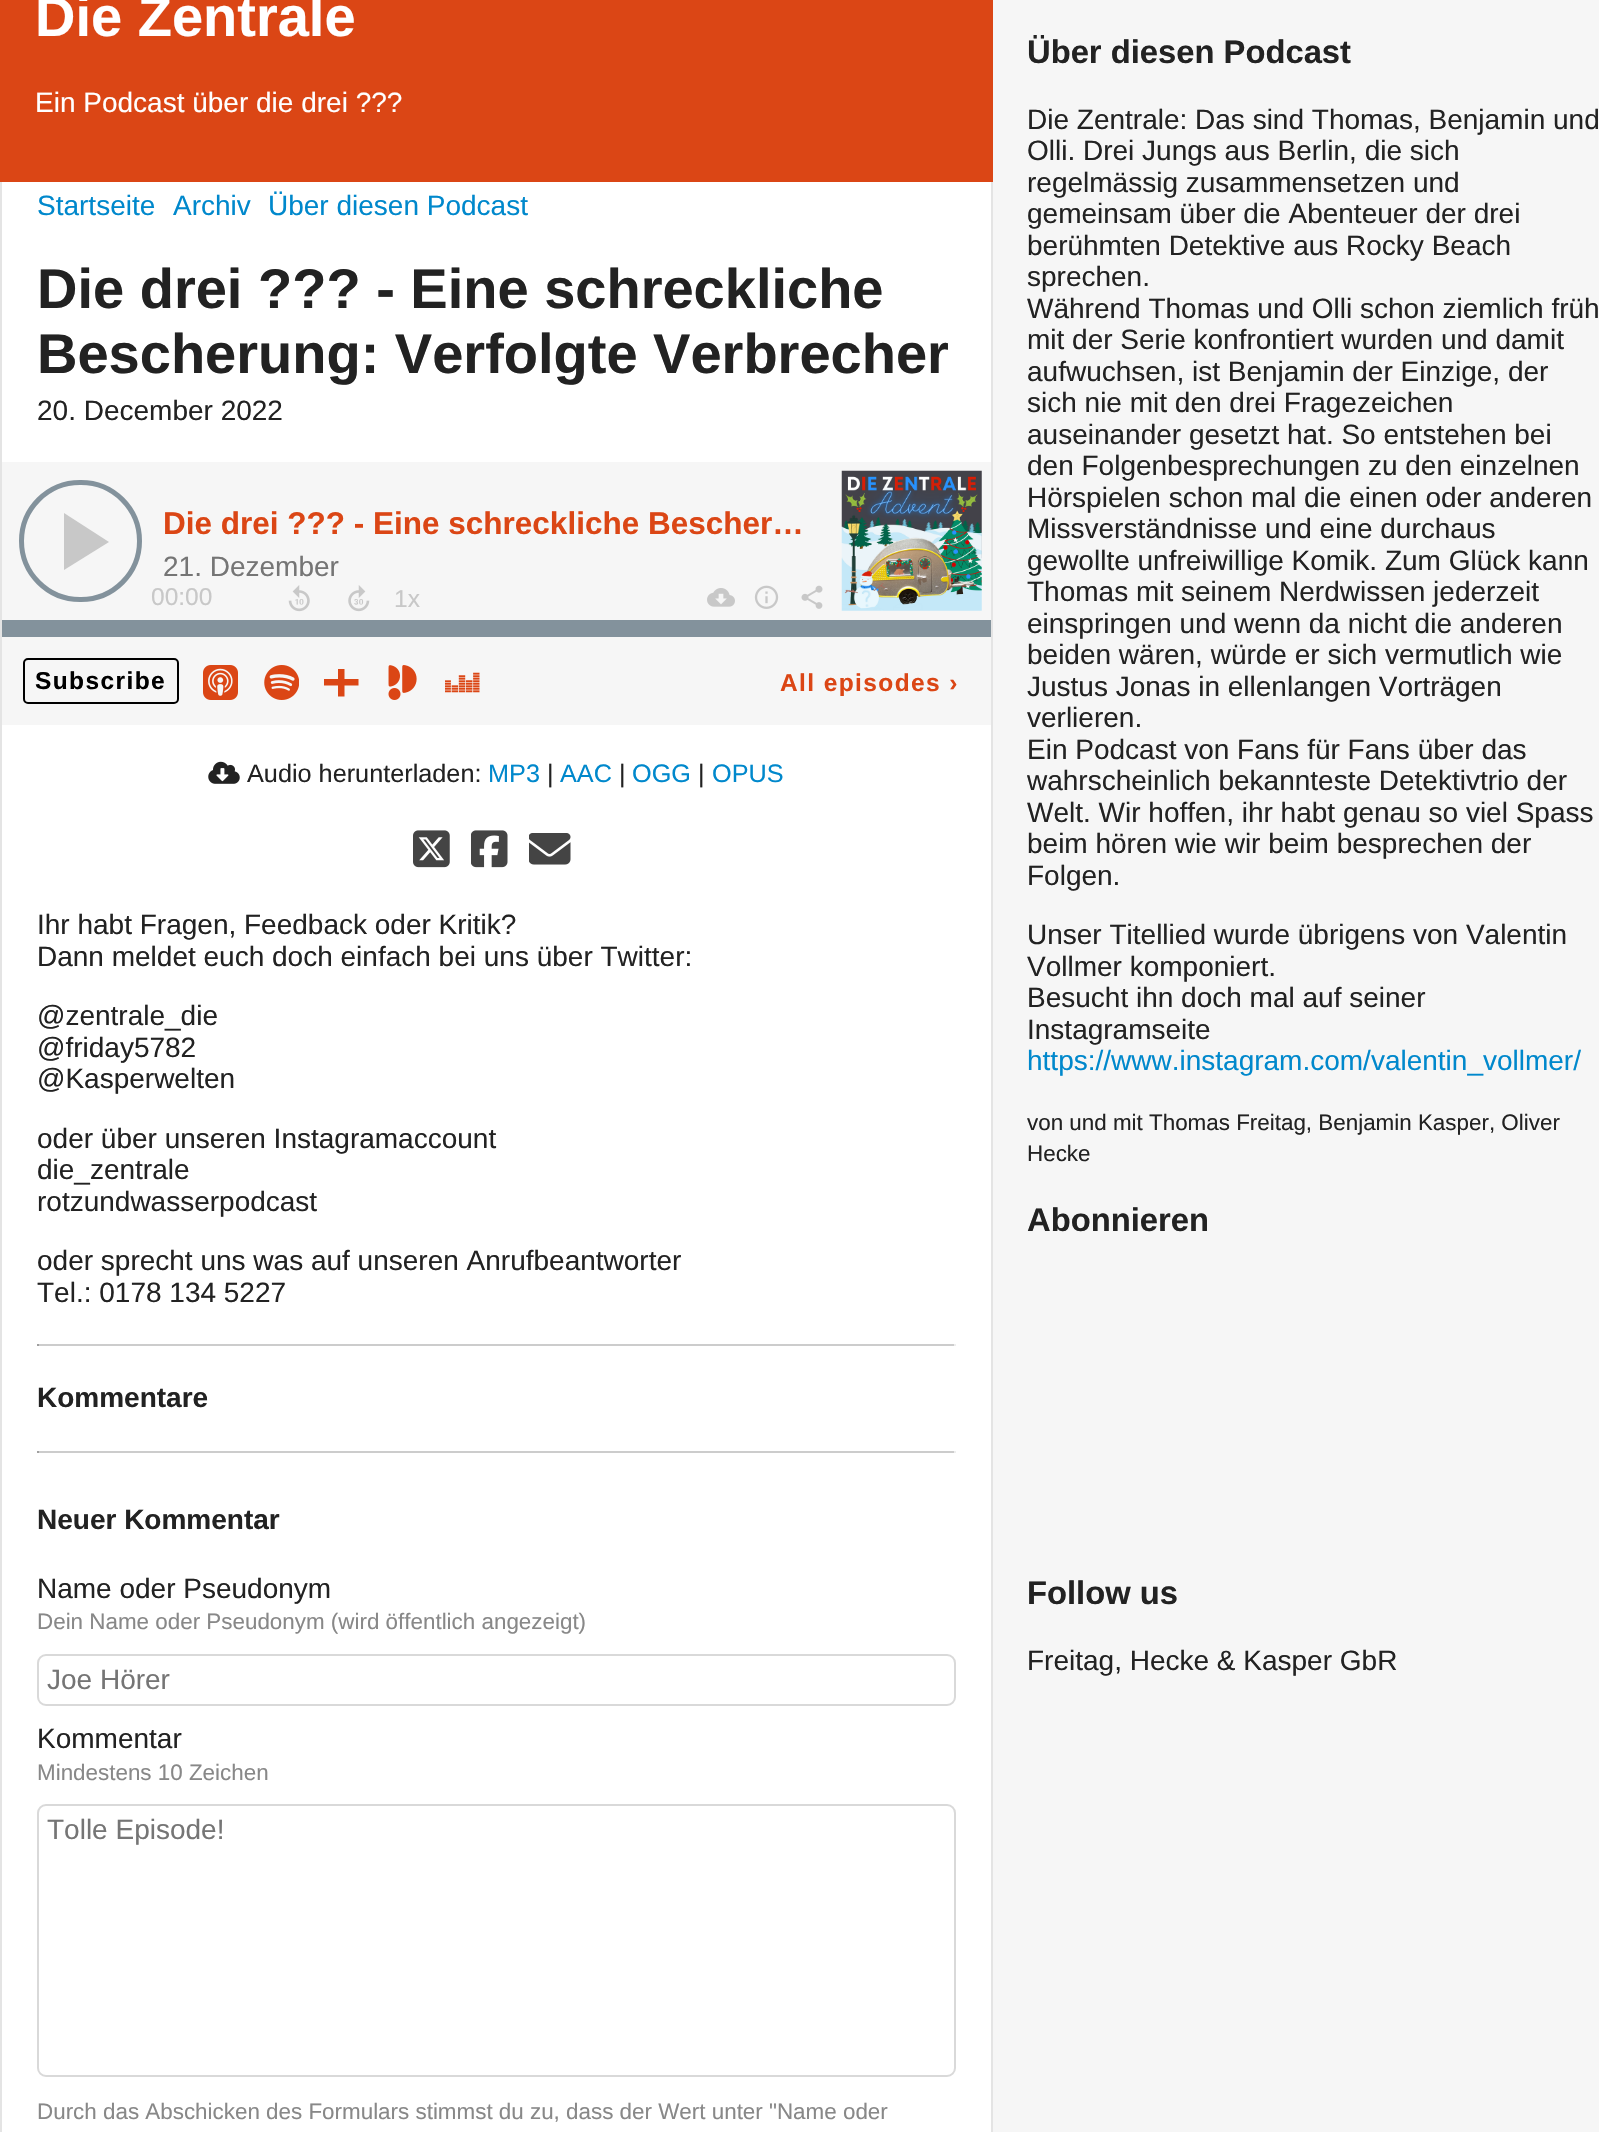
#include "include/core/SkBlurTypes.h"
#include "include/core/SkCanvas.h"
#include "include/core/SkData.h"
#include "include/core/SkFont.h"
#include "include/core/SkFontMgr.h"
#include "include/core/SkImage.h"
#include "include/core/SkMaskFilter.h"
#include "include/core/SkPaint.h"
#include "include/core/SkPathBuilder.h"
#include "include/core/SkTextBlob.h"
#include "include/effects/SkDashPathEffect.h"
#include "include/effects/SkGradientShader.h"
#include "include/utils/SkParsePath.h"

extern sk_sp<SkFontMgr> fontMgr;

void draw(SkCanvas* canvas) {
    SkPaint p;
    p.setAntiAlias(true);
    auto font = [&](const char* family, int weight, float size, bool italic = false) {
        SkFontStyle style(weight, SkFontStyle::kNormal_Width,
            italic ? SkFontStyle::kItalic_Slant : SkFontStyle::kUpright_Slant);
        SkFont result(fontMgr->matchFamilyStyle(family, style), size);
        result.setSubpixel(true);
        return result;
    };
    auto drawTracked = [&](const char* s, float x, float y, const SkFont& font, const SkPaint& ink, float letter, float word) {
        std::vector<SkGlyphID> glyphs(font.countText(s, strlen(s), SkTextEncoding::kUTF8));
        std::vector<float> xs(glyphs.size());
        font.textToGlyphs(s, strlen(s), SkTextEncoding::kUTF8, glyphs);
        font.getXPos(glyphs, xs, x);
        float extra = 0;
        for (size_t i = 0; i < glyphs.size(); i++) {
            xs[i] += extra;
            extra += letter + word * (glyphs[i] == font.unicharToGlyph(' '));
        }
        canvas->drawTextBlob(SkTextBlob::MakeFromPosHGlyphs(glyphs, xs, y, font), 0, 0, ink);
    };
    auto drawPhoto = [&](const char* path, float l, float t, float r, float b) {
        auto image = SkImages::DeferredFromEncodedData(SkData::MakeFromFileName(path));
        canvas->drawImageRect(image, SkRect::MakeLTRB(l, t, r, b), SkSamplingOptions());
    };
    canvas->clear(0xFFF6F6F6);
    p.setColor(0xFFFFFFFF);
    canvas->drawRect(SkRect::MakeLTRB(2, 182, 991, 2132), p);
    p.setColor(0xFFDB4615);
    canvas->drawRect(SkRect::MakeLTRB(0, 0, 993, 182), p);
    auto font1 = font("Liberation Sans", 700, 56);
    p.setColor(0xFFFFFFFF);
    canvas->drawString("Die Zentrale", 35, 36, font1, p);
    auto font2 = font("Liberation Sans", 400, 28);
    canvas->drawString("Ein Podcast über die drei ?\077?", 35, 112, font2, p);
    p.setColor(0xFFE4E4E4);
    canvas->drawRect(SkRect::MakeLTRB(991, 182, 993, 2132), p);
    canvas->drawRect(SkRect::MakeLTRB(0, 182, 2, 2132), p);
    p.setColor(0xFF0088CC);
    {
        const struct { const char* s; float x, y; } items[] = {
            {"Startseite", 37, 215},
            {"Archiv", 173, 215},
            {"Über diesen Podcast", 268, 215},
        };
        for (auto [s, x, y] : items) {
            canvas->drawString(s, x, y, font2, p);
        }
    }
    p.setColor(0xFF222222);
    canvas->drawString("Die drei ?\077? - Eine schreckliche", 37, 308, font1, p);
    canvas->drawString("Bescherung: Verfolgte Verbrecher", 37, 373, font1, p);
    canvas->drawString("20. December 2022", 37, 420, font2, p);
    p.setColor(0xFFF6F6F6);
    canvas->drawRect(SkRect::MakeLTRB(2, 462, 991, 725), p);
    p.setStyle(SkPaint::kStroke_Style);
    p.setStrokeWidth(5);
    p.setColor(0xFF83929C);
    canvas->drawRoundRect(SkRect::MakeLTRB(21.5f, 482.5f, 139.5f, 599.5f), 58.5f, 58.5f, p);
    p.setStyle(SkPaint::kFill_Style);
    p.setColor(0xFFC8C8C8);
    canvas->drawPath(SkPathBuilder().moveTo(64, 513).lineTo(109, 542).lineTo(64, 570).close().detach(), p);
    auto font3 = font("Liberation Sans", 700, 31.5f);
    p.setColor(0xFFDB4615);
    canvas->drawString("Die drei ?\077? - Eine schreckliche Bescher…", 163, 534, font3, p);
    p.setColor(0xFF757575);
    canvas->drawString("21. Dezember", 163, 576, font2, p);
    drawPhoto("media/1.png", 841, 470, 982, 611);
    auto font4 = font("Liberation Sans", 400, 24.5f);
    p.setColor(0xFFC8C8C8);
    canvas->drawString("00:00", 151, 605, font4, p);
    p.setColor(0xFF83929C);
    canvas->drawRect(SkRect::MakeLTRB(2, 620, 991, 637), p);
    drawPhoto("media/2.png", 288, 585, 310, 612);
    drawPhoto("media/3.png", 348, 585, 370, 612);
    p.setColor(0xFFC8C8C8);
    canvas->drawString("1x", 394, 607, font4, p);
    drawPhoto("media/4.png", 707, 588, 735, 607);
    drawPhoto("media/5.png", 754, 585, 779, 609);
    drawPhoto("media/6.png", 801, 585, 823, 609);
    p.setStyle(SkPaint::kStroke_Style);
    p.setStrokeWidth(2);
    p.setColor(0xFF000000);
    canvas->drawRoundRect(SkRect::MakeLTRB(24, 659, 178, 703), 4, 4, p);
    auto font5 = font("Liberation Sans", 700, 24.5f);
    p.setStyle(SkPaint::kFill_Style);
    drawTracked("Subscribe", 35, 689, font5, p, 1.4f, 0);
    drawPhoto("media/7.png", 203, 665, 238, 700);
    drawPhoto("media/8.png", 264, 665, 299, 700);
    canvas->save();
    canvas->clipRect(SkRect::MakeLTRB(324, 669, 359, 697));
    p.setColor(0xFFDB4615);
    canvas->drawPath(SkPathBuilder().moveTo(338, 685.5f).lineTo(338, 696.5f).lineTo(344.5f, 696.5f).lineTo(344.5f, 685.5f).lineTo(358.5f, 685.5f).lineTo(358.5f, 679).lineTo(344.5f, 679).lineTo(344.5f, 668.5f).lineTo(338, 668.5f).lineTo(338, 679).lineTo(324, 679).lineTo(324, 685.5f).close().detach(), p);
    canvas->restore();
    drawPhoto("media/9.png", 388, 665, 417, 700);
    drawPhoto("media/10.png", 445, 672, 480, 693);
    drawTracked("All episodes ›", 780, 691, font5, p, 1.4f, 0);
    drawPhoto("media/11.png", 208, 761, 240, 784);
    auto font6 = font("Liberation Sans", 400, 25.25f);
    p.setColor(0xFF222222);
    canvas->drawString("Audio herunterladen:", 247, 782, font6, p);
    p.setColor(0xFF0088CC);
    canvas->drawString("MP3", 488, 782, font6, p);
    p.setColor(0xFF222222);
    canvas->drawString("|", 547, 782, font6, p);
    p.setColor(0xFF0088CC);
    canvas->drawString("AAC", 560, 782, font6, p);
    p.setColor(0xFF222222);
    canvas->drawString("|", 619, 782, font6, p);
    p.setColor(0xFF0088CC);
    canvas->drawString("OGG", 632, 782, font6, p);
    p.setColor(0xFF222222);
    canvas->drawString("|", 698, 782, font6, p);
    p.setColor(0xFF0088CC);
    canvas->drawString("OPUS", 712, 782, font6, p);
    drawPhoto("media/12.png", 413, 830, 450, 868);
    drawPhoto("media/13.png", 471, 830, 508, 868);
    drawPhoto("media/14.png", 529, 833, 571, 865);
    p.setColor(0xFF222222);
    {
        const struct { const char* s; float x, y; } items[] = {
            {"Ihr habt Fragen, Feedback oder Kritik?", 37, 934},
            {"Dann meldet euch doch einfach bei uns über Twitter:", 37, 966},
            {"@zentrale_die", 37, 1025},
            {"@friday5782", 37, 1057},
            {"@Kasperwelten", 37, 1088},
            {"oder über unseren Instagramaccount", 37, 1148},
            {"die_zentrale", 37, 1179},
            {"rotzundwasserpodcast", 37, 1211},
            {"oder sprecht uns was auf unseren Anrufbeantworter", 37, 1270},
            {"Tel.: 0178 134 5227", 37, 1302},
        };
        for (auto [s, x, y] : items) {
            canvas->drawString(s, x, y, font2, p);
        }
    }
    {
        const struct { float l, t, r, b; SkColor color; } items[] = {
            {37, 1344, 956, 1346, 0xFFCCCCCC},
            {954, 1344, 956, 1346, 0xFFEEEEEE},
            {37, 1344, 39, 1346, 0xFF9F9F9F},
        };
        for (auto [l, t, r, b, color] : items) {
            p.setColor(color);
            canvas->drawRect(SkRect::MakeLTRB(l, t, r, b), p);
        }
    }
    auto font7 = font("Liberation Sans", 700, 28);
    p.setColor(0xFF222222);
    canvas->drawString("Kommentare", 37, 1407, font7, p);
    {
        const struct { float l, t, r, b; SkColor color; } items[] = {
            {37, 1451, 956, 1453, 0xFFCCCCCC},
            {954, 1451, 956, 1453, 0xFFEEEEEE},
            {37, 1451, 39, 1453, 0xFF9F9F9F},
        };
        for (auto [l, t, r, b, color] : items) {
            p.setColor(color);
            canvas->drawRect(SkRect::MakeLTRB(l, t, r, b), p);
        }
    }
    p.setColor(0xFF222222);
    canvas->drawString("Neuer Kommentar", 37, 1529, font7, p);
    canvas->drawString("Name oder Pseudonym", 37, 1598, font2, p);
    auto font8 = font("Liberation Sans", 400, 22.4f);
    p.setColor(0xFF888888);
    canvas->drawString("Dein Name oder Pseudonym (wird öffentlich angezeigt)", 37, 1629, font8, p);
    p.setStyle(SkPaint::kStroke_Style);
    p.setColor(0xFFD9D9D9);
    canvas->drawRoundRect(SkRect::MakeLTRB(38, 1655, 955, 1705), 8, 8, p);
    p.setStyle(SkPaint::kFill_Style);
    p.setColor(0xFF757575);
    canvas->drawString("Joe Hörer", 47, 1689, font2, p);
    p.setColor(0xFF222222);
    canvas->drawString("Kommentar", 37, 1748, font2, p);
    p.setColor(0xFF888888);
    canvas->drawString("Mindestens 10 Zeichen", 37, 1780, font8, p);
    p.setStyle(SkPaint::kStroke_Style);
    p.setColor(0xFFD9D9D9);
    canvas->drawRoundRect(SkRect::MakeLTRB(38, 1805, 955, 2076), 8, 8, p);
    p.setStyle(SkPaint::kFill_Style);
    p.setColor(0xFF757575);
    canvas->drawString("Tolle Episode!", 47, 1839, font2, p);
    p.setColor(0xFF888888);
    canvas->drawString("Durch das Abschicken des Formulars stimmst du zu, dass der Wert unter \"Name oder", 37, 2119, font8, p);
    auto font9 = font("Liberation Sans", 700, 32.75f);
    p.setColor(0xFF222222);
    canvas->drawString("Über diesen Podcast", 1027, 63, font9, p);
    {
        const struct { const char* s; float x, y; } items[] = {
            {"Die Zentrale: Das sind Thomas, Benjamin und", 1027, 129},
            {"Olli. Drei Jungs aus Berlin, die sich", 1027, 160},
            {"regelmässig zusammensetzen und", 1027, 192},
            {"gemeinsam über die Abenteuer der drei", 1027, 223},
            {"berühmten Detektive aus Rocky Beach", 1027, 255},
            {"sprechen.", 1027, 286},
            {"Während Thomas und Olli schon ziemlich früh", 1027, 318},
            {"mit der Serie konfrontiert wurden und damit", 1027, 349},
            {"aufwuchsen, ist Benjamin der Einzige, der", 1027, 381},
            {"sich nie mit den drei Fragezeichen", 1027, 412},
            {"auseinander gesetzt hat. So entstehen bei", 1027, 444},
            {"den Folgenbesprechungen zu den einzelnen", 1027, 475},
            {"Hörspielen schon mal die einen oder anderen", 1027, 507},
            {"Missverständnisse und eine durchaus", 1027, 538},
            {"gewollte unfreiwillige Komik. Zum Glück kann", 1027, 570},
            {"Thomas mit seinem Nerdwissen jederzeit", 1027, 601},
            {"einspringen und wenn da nicht die anderen", 1027, 633},
            {"beiden wären, würde er sich vermutlich wie", 1027, 664},
            {"Justus Jonas in ellenlangen Vorträgen", 1027, 696},
            {"verlieren.", 1027, 727},
            {"Ein Podcast von Fans für Fans über das", 1027, 759},
            {"wahrscheinlich bekannteste Detektivtrio der", 1027, 790},
            {"Welt. Wir hoffen, ihr habt genau so viel Spass", 1027, 822},
            {"beim hören wie wir beim besprechen der", 1027, 853},
            {"Folgen.", 1027, 885},
            {"Unser Titellied wurde übrigens von Valentin", 1027, 944},
            {"Vollmer komponiert.", 1027, 976},
            {"Besucht ihn doch mal auf seiner", 1027, 1007},
            {"Instagramseite", 1027, 1039},
        };
        for (auto [s, x, y] : items) {
            canvas->drawString(s, x, y, font2, p);
        }
    }
    p.setColor(0xFF0088CC);
    canvas->drawString("https://www.instagram.com/valentin_vollmer/", 1027, 1070, font2, p);
    p.setColor(0xFF222222);
    canvas->drawString("von und mit Thomas Freitag, Benjamin Kasper, Oliver", 1027, 1130, font8, p);
    canvas->drawString("Hecke", 1027, 1161, font8, p);
    canvas->drawString("Abonnieren", 1027, 1231, font9, p);
    canvas->drawString("Follow us", 1027, 1604, font9, p);
    canvas->drawString("Freitag, Hecke & Kasper GbR", 1027, 1670, font2, p);
}
